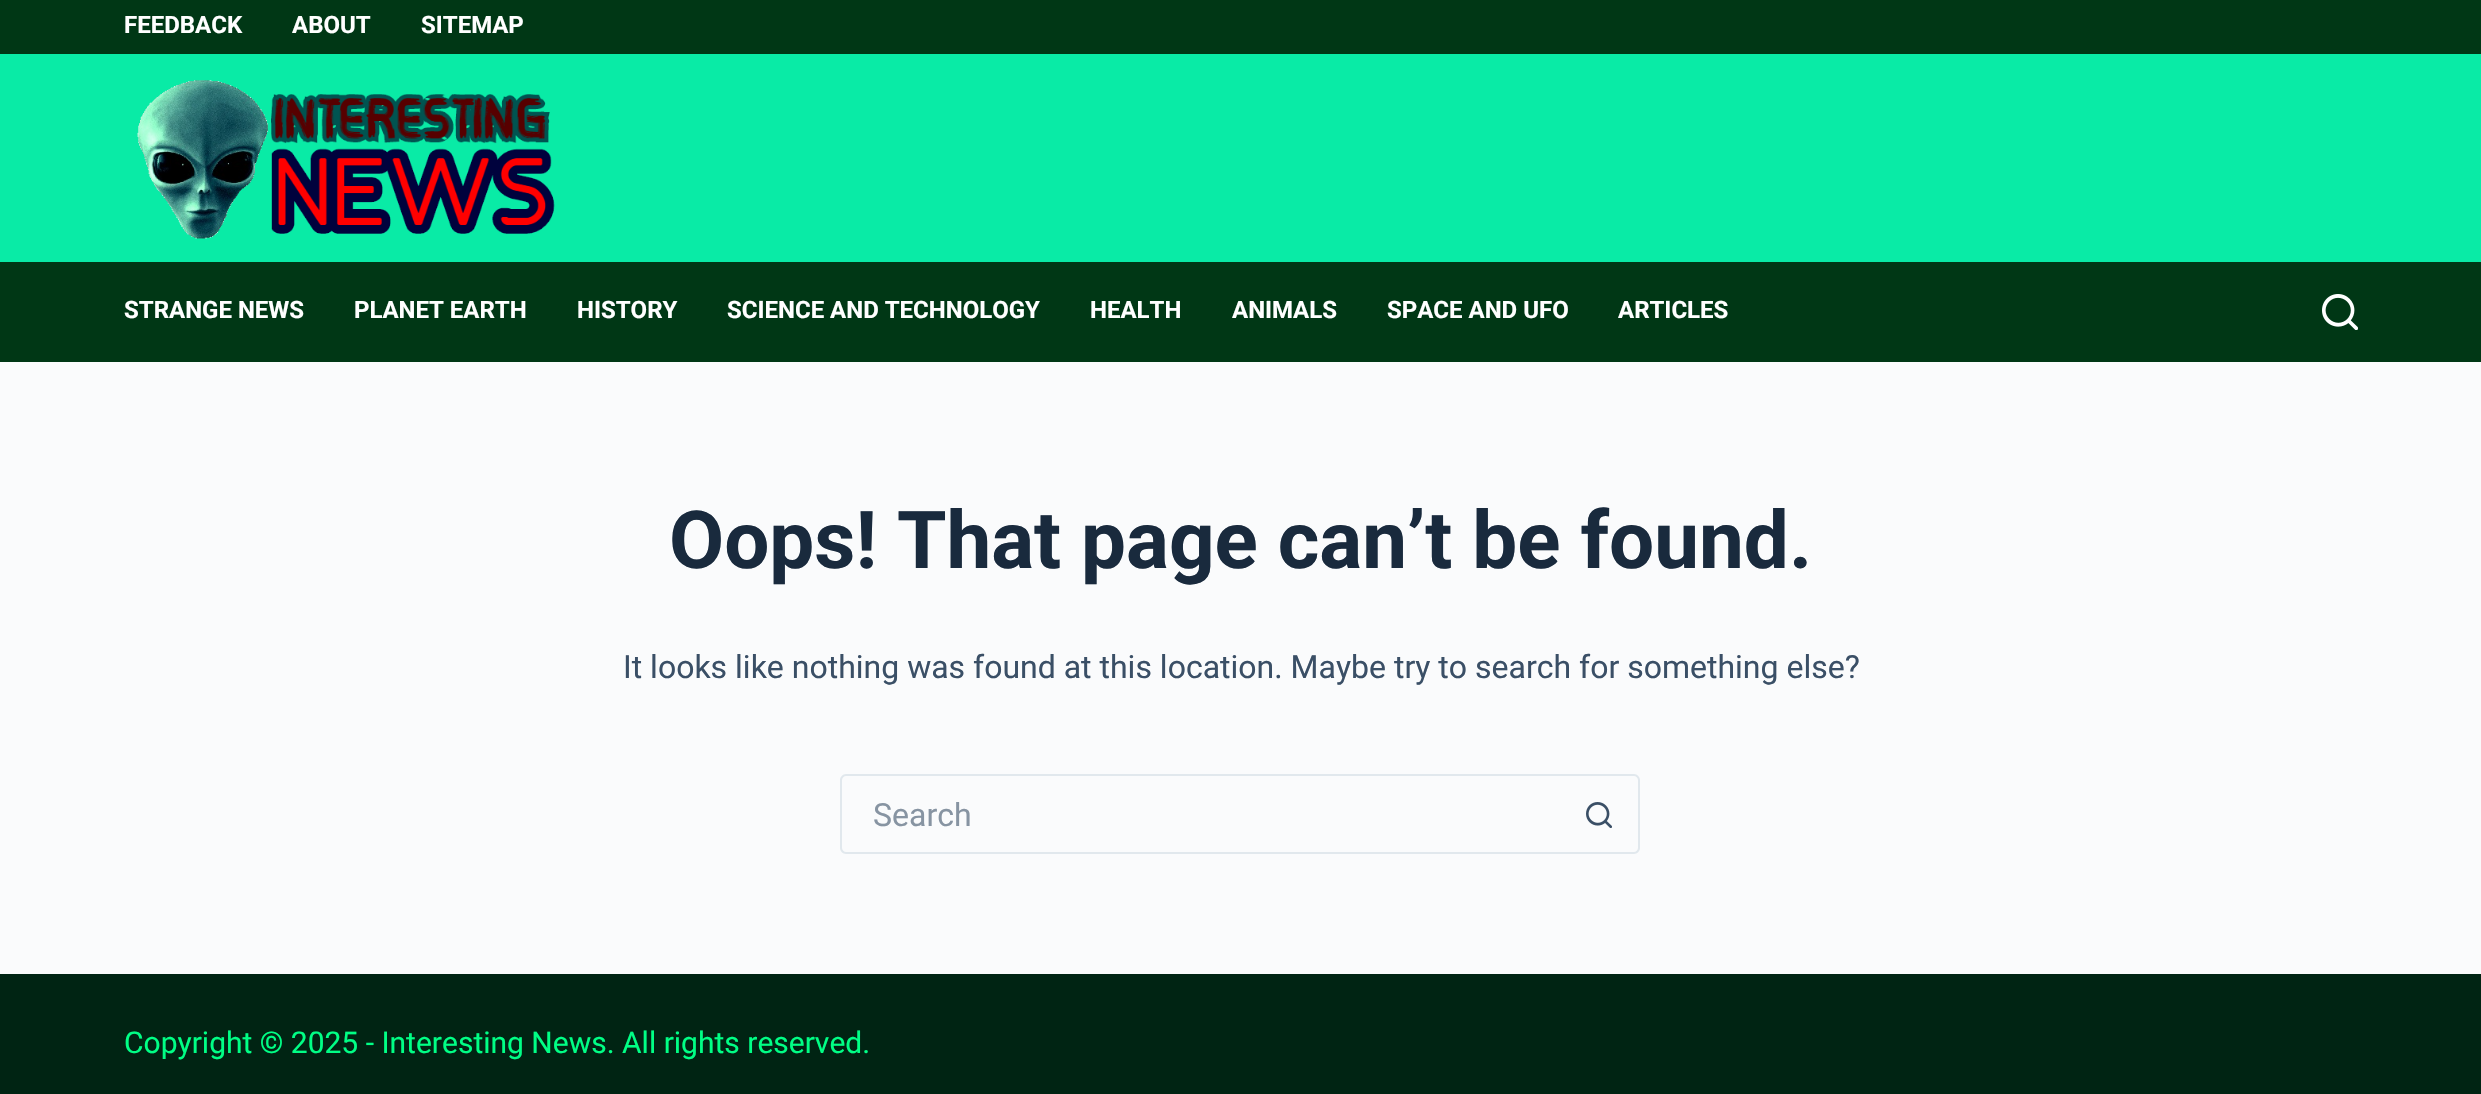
#include "include/core/SkBlurTypes.h"
#include "include/core/SkCanvas.h"
#include "include/core/SkData.h"
#include "include/core/SkFont.h"
#include "include/core/SkFontMgr.h"
#include "include/core/SkImage.h"
#include "include/core/SkMaskFilter.h"
#include "include/core/SkPaint.h"
#include "include/core/SkPathBuilder.h"
#include "include/core/SkTextBlob.h"
#include "include/effects/SkDashPathEffect.h"
#include "include/effects/SkGradientShader.h"
#include "include/utils/SkParsePath.h"

extern sk_sp<SkFontMgr> fontMgr;

void draw(SkCanvas* canvas) {
    SkPaint p;
    p.setAntiAlias(true);
    auto font = [&](const char* family, int weight, float size, bool italic = false) {
        SkFontStyle style(weight, SkFontStyle::kNormal_Width,
            italic ? SkFontStyle::kItalic_Slant : SkFontStyle::kUpright_Slant);
        SkFont result(fontMgr->matchFamilyStyle(family, style), size);
        result.setSubpixel(true);
        return result;
    };
    auto drawPhoto = [&](const char* path, float l, float t, float r, float b) {
        auto image = SkImages::DeferredFromEncodedData(SkData::MakeFromFileName(path));
        canvas->drawImageRect(image, SkRect::MakeLTRB(l, t, r, b), SkSamplingOptions());
    };
    canvas->clear(0xFFFAFBFC);
    p.setColor(0xFF003715);
    canvas->drawRect(SkRect::MakeLTRB(0, 0, 2481, 54), p);
    auto font1 = font("Roboto", 700, 24);
    p.setColor(0xFFFFFFFF);
    {
        const struct { const char* s; float x, y; } items[] = {
            {"FEEDBACK", 124, 33},
            {"ABOUT", 292, 33},
            {"SITEMAP", 421, 33},
        };
        for (auto [s, x, y] : items) {
            canvas->drawString(s, x, y, font1, p);
        }
    }
    p.setColor(0xFF09EBA6);
    canvas->drawRect(SkRect::MakeLTRB(0, 54, 2481, 262), p);
    drawPhoto("media/1.png", 137, 80, 555, 239);
    p.setColor(0xFF003715);
    canvas->drawRect(SkRect::MakeLTRB(0, 262, 2481, 362), p);
    p.setColor(0xFFFFFFFF);
    {
        const struct { const char* s; float x, y; } items[] = {
            {"STRANGE NEWS", 124, 318},
            {"PLANET EARTH", 354, 318},
            {"HISTORY", 577, 318},
            {"SCIENCE AND TECHNOLOGY", 727, 318},
            {"HEALTH", 1090, 318},
            {"ANIMALS", 1232, 318},
            {"SPACE AND UFO", 1387, 318},
            {"ARTICLES", 1618, 318},
        };
        for (auto [s, x, y] : items) {
            canvas->drawString(s, x, y, font1, p);
        }
    }
    drawPhoto("media/2.png", 2322, 294, 2358, 330);
    auto font2 = font("Roboto", 700, 80);
    p.setColor(0xFF192A3D);
    canvas->drawString("Oops! That page can’t be found.", 669, 568, font2, p);
    auto font3 = font("Roboto", 400, 32);
    p.setColor(0xFF3A4F66);
    canvas->drawString("It looks like nothing was found at this location. Maybe try to search for something else?", 623, 678, font3, p);
    p.setColor(0xFFE1E8ED);
    canvas->drawPath(SkPathBuilder(SkPathFillType::kEvenOdd).moveTo(846, 774).lineTo(1560, 774).lineTo(1560, 854).lineTo(846, 854).cubicTo(843, 854, 840, 851, 840, 848).lineTo(840, 780).cubicTo(840, 777, 843, 774, 846, 774).close().moveTo(846, 776).lineTo(1560, 776).lineTo(1560, 852).lineTo(846, 852).cubicTo(844, 852, 842, 850, 842, 848).lineTo(842, 780).cubicTo(842, 778, 844, 776, 846, 776).close().detach(), p);
    p.setColor(0xFF8794A2);
    canvas->drawString("Search", 873, 826, font3, p);
    p.setColor(0xFFE1E8ED);
    canvas->drawPath(SkPathBuilder(SkPathFillType::kEvenOdd).moveTo(1560, 774).lineTo(1634, 774).cubicTo(1637, 774, 1640, 777, 1640, 780).lineTo(1640, 848).cubicTo(1640, 851, 1637, 854, 1634, 854).lineTo(1560, 854).close().moveTo(1560, 776).lineTo(1634, 776).cubicTo(1636, 776, 1638, 778, 1638, 780).lineTo(1638, 848).cubicTo(1638, 850, 1636, 852, 1634, 852).lineTo(1560, 852).close().detach(), p);
    drawPhoto("media/3.png", 1586, 802, 1612, 828);
    p.setColor(0xFF002413);
    canvas->drawRect(SkRect::MakeLTRB(0, 974, 2481, 1094), p);
    auto font4 = font("Roboto", 400, 30);
    p.setColor(0xFF00FF85);
    canvas->drawString("Copyright © 2025 - Interesting News. All rights reserved.", 124, 1053, font4, p);
}
